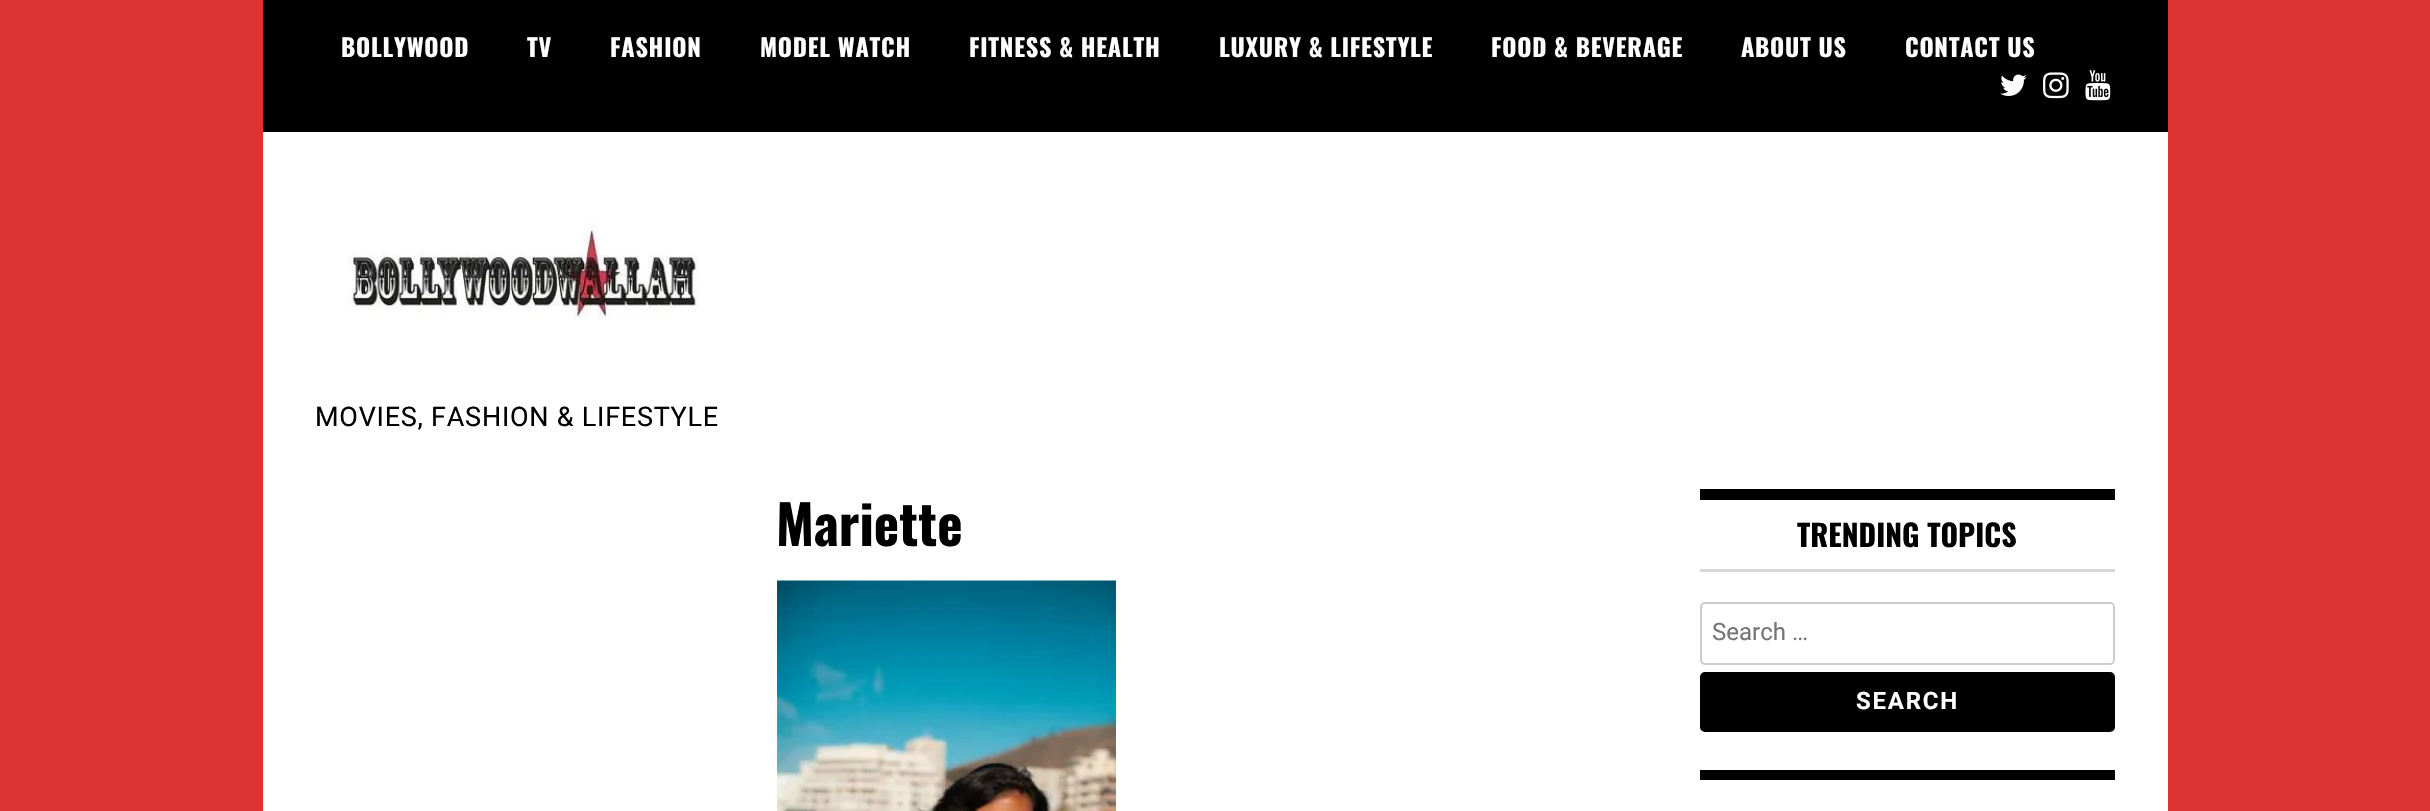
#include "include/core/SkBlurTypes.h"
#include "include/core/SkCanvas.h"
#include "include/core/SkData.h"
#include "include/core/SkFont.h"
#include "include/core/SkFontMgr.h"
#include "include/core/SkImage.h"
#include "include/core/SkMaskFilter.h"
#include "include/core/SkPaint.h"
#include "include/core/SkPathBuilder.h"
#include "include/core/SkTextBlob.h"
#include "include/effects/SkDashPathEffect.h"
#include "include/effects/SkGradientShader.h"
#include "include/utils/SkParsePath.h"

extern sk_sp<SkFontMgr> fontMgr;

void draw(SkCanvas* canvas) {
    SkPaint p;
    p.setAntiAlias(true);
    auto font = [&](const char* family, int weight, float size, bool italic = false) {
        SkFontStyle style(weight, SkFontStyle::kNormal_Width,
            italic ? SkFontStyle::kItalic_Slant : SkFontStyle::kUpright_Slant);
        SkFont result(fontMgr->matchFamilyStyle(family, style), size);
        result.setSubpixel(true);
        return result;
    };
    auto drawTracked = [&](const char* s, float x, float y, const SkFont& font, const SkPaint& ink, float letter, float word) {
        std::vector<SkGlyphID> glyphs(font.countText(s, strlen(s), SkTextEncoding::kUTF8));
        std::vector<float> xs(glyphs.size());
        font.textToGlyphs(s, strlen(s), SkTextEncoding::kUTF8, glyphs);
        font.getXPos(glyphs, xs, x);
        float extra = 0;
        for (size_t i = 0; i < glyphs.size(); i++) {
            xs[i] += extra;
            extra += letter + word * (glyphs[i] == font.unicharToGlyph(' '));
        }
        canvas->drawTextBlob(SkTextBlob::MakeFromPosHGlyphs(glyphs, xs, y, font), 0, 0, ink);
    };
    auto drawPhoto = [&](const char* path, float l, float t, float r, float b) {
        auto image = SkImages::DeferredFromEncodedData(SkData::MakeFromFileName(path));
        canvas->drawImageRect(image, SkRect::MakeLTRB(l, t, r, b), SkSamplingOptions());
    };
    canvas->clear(0xFFDD3333);
    p.setColor(0xFFFFFFFF);
    canvas->drawRect(SkRect::MakeLTRB(263, 132, 2168, 811), p);
    p.setColor(0xFF000000);
    canvas->drawRect(SkRect::MakeLTRB(263, 0, 2168, 132), p);
    auto font1 = font("Oswald", 700, 24.25f);
    p.setColor(0xFFFFFFFF);
    {
        const struct { const char* s; float x, y; } items[] = {
            {"BOLLYWOOD", 341, 57},
            {"TV", 527, 57},
            {"FASHION", 610, 57},
            {"MODEL WATCH", 760, 57},
            {"FITNESS & HEALTH", 969, 57},
            {"LUXURY & LIFESTYLE", 1219, 57},
            {"FOOD & BEVERAGE", 1491, 57},
            {"ABOUT US", 1741, 57},
            {"CONTACT US", 1905, 57},
        };
        for (auto [s, x, y] : items) {
            drawTracked(s, x, y, font1, p, 0.75f, 0);
        }
    }
    drawPhoto("media/1.png", 2000, 74, 2027, 96);
    drawPhoto("media/2.png", 2043, 72, 2069, 99);
    drawPhoto("media/3.png", 2085, 70, 2111, 101);
    drawPhoto("media/4.png", 348, 223, 699, 318);
    auto font2 = font("Roboto", 400, 27);
    p.setColor(0xFF000000);
    drawTracked("MOVIES, FASHION & LIFESTYLE", 315, 426, font2, p, 0.75f, 0);
    auto font3 = font("Oswald", 700, 54);
    canvas->drawString("Mariette", 776, 546, font3, p);
    drawPhoto("media/5.png", 777, 580, 1116, 811);
    canvas->drawRect(SkRect::MakeLTRB(1700, 489, 2115, 500), p);
    p.setColor(0xFFD7D7D7);
    canvas->drawRect(SkRect::MakeLTRB(1700, 569, 2115, 572), p);
    auto font4 = font("Oswald", 700, 30);
    p.setColor(0xFF000000);
    canvas->drawString("TRENDING TOPICS", 1797, 547, font4, p);
    p.setStyle(SkPaint::kStroke_Style);
    p.setStrokeWidth(2);
    p.setColor(0xFFCCCCCC);
    canvas->drawRoundRect(SkRect::MakeLTRB(1701, 603, 2114, 664), 4, 4, p);
    auto font5 = font("Roboto", 400, 24);
    p.setStyle(SkPaint::kFill_Style);
    p.setColor(0xFF757575);
    canvas->drawString("Search …", 1712, 640, font5, p);
    p.setColor(0xFF000000);
    canvas->drawRoundRect(SkRect::MakeLTRB(1701, 673, 2114, 731), 4, 4, p);
    p.setStyle(SkPaint::kStroke_Style);
    canvas->drawRoundRect(SkRect::MakeLTRB(1701, 673, 2114, 731), 4, 4, p);
    auto font6 = font("Roboto", 700, 24);
    p.setStyle(SkPaint::kFill_Style);
    p.setColor(0xFFFFFFFF);
    drawTracked("SEARCH", 1856, 709, font6, p, 1.75f, 0);
    p.setColor(0xFF000000);
    canvas->drawRect(SkRect::MakeLTRB(1700, 770, 2115, 780), p);
}
